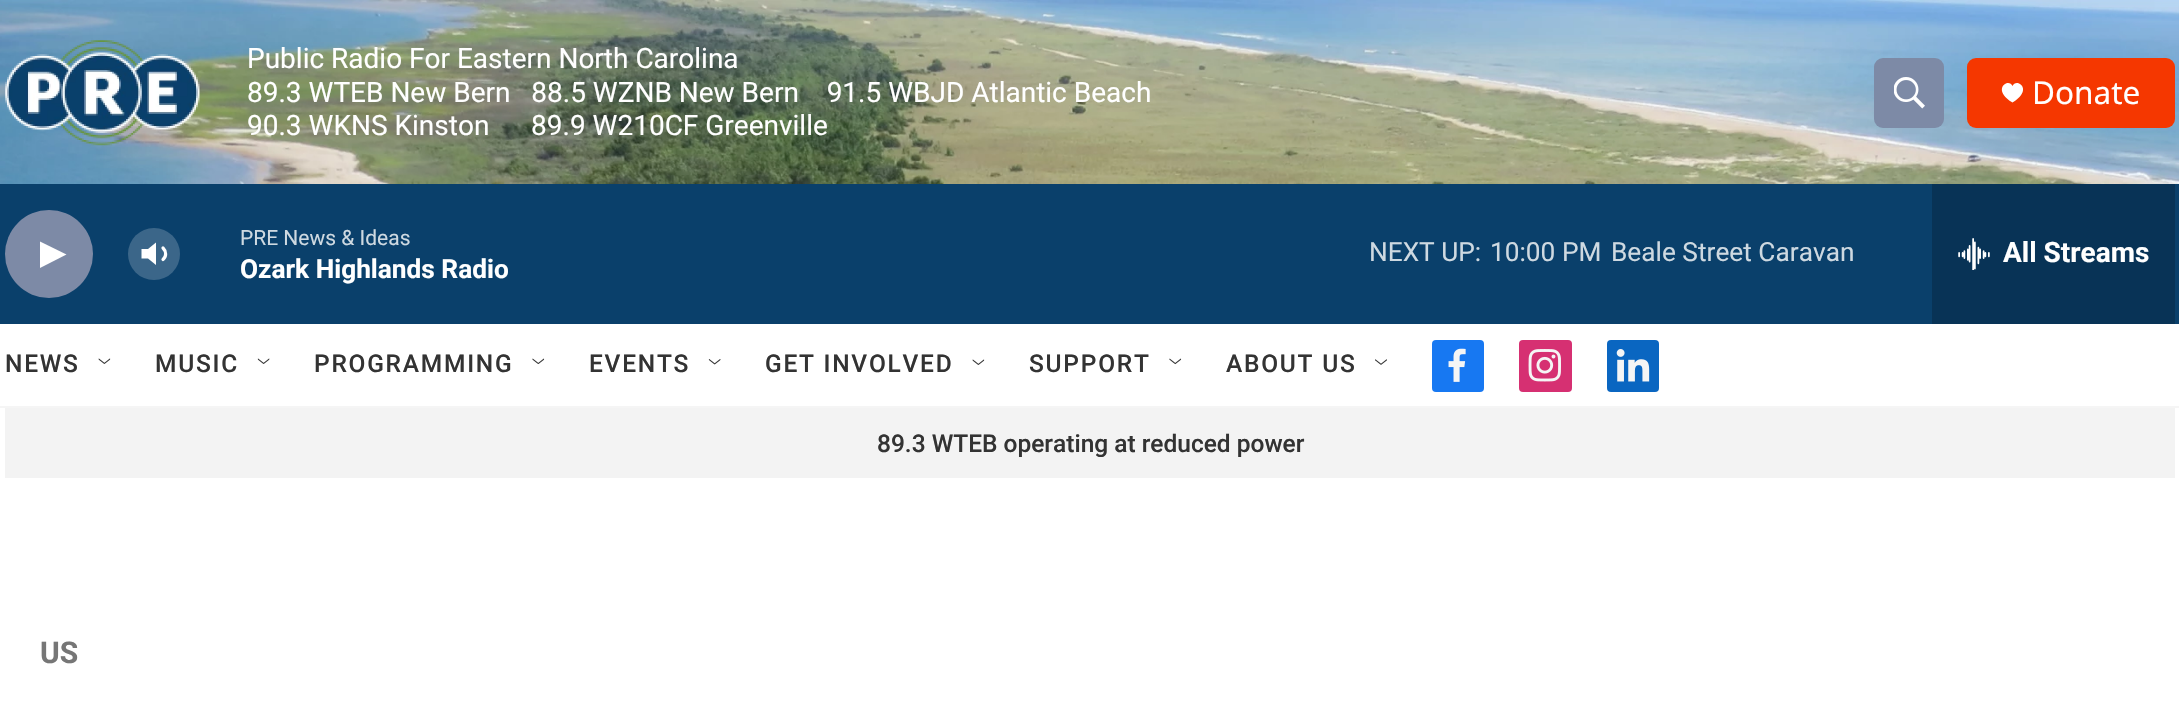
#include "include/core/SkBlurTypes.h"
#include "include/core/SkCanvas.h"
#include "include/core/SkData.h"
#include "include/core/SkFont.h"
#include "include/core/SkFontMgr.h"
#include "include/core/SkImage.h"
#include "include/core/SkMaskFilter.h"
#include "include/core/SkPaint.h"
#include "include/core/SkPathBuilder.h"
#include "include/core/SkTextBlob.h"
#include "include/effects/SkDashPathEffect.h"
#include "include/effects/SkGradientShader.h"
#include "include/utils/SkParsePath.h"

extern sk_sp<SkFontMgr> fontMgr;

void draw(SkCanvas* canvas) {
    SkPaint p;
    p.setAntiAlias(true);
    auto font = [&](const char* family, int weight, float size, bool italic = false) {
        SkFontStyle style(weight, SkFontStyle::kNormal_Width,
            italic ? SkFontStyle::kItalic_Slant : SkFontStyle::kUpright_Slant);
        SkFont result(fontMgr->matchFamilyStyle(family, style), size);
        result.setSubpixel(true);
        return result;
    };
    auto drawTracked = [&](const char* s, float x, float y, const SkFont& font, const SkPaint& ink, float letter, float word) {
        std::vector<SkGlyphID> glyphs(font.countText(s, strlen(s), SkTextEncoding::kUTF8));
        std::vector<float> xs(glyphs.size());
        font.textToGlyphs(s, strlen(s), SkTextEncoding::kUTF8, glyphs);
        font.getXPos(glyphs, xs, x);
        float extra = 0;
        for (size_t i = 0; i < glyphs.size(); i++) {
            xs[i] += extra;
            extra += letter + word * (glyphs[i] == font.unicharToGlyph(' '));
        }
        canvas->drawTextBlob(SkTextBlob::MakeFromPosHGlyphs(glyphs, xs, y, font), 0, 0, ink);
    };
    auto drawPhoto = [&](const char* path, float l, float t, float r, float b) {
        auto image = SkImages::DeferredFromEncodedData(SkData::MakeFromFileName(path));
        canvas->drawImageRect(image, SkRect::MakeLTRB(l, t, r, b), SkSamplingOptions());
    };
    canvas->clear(0xFFFFFFFF);
    p.setColor(0xFFF5F5F5);
    canvas->drawRect(SkRect::MakeLTRB(0, 406, 2179, 408), p);
    drawPhoto("media/1.png", 0, 0, 2179, 184);
    drawPhoto("media/2.png", 5, 40, 200, 146);
    auto font1 = font("Roboto", 400, 28);
    p.setColor(0xFFFFFFFF);
    {
        const struct { const char* s; float x, y; } items[] = {
            {"Public Radio For Eastern North Carolina", 247, 68},
            {"89.3 WTEB New Bern   88.5 WZNB New Bern    91.5 WBJD Atlantic Beach", 247, 102},
            {"90.3 WKNS Kinston      89.9 W210CF Greenville", 247, 135},
        };
        for (auto [s, x, y] : items) {
            canvas->drawString(s, x, y, font1, p);
        }
    }
    p.setColor(0xFF7D8AA6);
    canvas->drawRoundRect(SkRect::MakeLTRB(1874, 58, 1944, 128), 9, 9, p);
    drawPhoto("media/3.png", 1894, 77, 1925, 109);
    p.setColor(0xFFF53700);
    canvas->drawRoundRect(SkRect::MakeLTRB(1967, 58, 2175, 128), 9, 9, p);
    p.setColor(0xFFFFFFFF);
    canvas->drawPath(SkPathBuilder().moveTo(2012.5f, 86).cubicTo(2009, 77, 1990.5f, 89, 2012.5f, 102.5f).cubicTo(2034.5f, 89, 2016, 77, 2012.5f, 86).close().detach(), p);
    auto font2 = font("Noto Sans", 400, 31.5f);
    canvas->drawString("Donate", 2032, 104, font2, p);
    p.setColor(0xFF0A406B);
    canvas->drawRect(SkRect::MakeLTRB(0, 184, 2179, 324), p);
    p.setColor(0xFF7D8AA6);
    canvas->drawCircle(49, 254, 44, p);
    p.setColor(0xFFFFFFFF);
    canvas->drawPath(SkPathBuilder().moveTo(40, 241.5f).lineTo(66.5f, 254.5f).lineTo(40, 268).close().detach(), p);
    canvas->drawPath(SkPathBuilder().moveTo(156, 242.5f).lineTo(148, 249).lineTo(141.5f, 249).lineTo(141.5f, 258.5f).lineTo(148, 258.5f).lineTo(156, 265).close().detach(), p);
    p.setStyle(SkPaint::kStroke_Style);
    p.setStrokeWidth(3.2f);
    p.setStrokeCap(SkPaint::kRound_Cap);
    p.setStrokeJoin(SkPaint::kRound_Join);
    canvas->drawPath(SkPathBuilder().moveTo(163, 248).cubicTo(166.5f, 251.5f, 166.5f, 256.5f, 163, 259.5f).detach(), p);
    p.setStyle(SkPaint::kFill_Style);
    p.setColor(0x33FFFFFF);
    canvas->drawCircle(154, 254, 26, p);
    auto font3 = font("Roboto", 400, 21);
    p.setColor(0xFFCED9E1);
    canvas->drawString("PRE News & Ideas", 240, 245, font3, p);
    auto font4 = font("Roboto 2", 700, 26.25f);
    p.setColor(0xFFFFFFFF);
    canvas->drawString("Ozark Highlands Radio", 240, 278, font4, p);
    auto font5 = font("Roboto", 400, 26.25f);
    p.setColor(0xFFCED9E1);
    {
        const struct { const char* s; float x, y; } items[] = {
            {"NEXT UP:", 1369, 261},
            {"10:00 PM", 1490, 261},
            {"Beale Street Caravan", 1611, 261},
        };
        for (auto [s, x, y] : items) {
            canvas->drawString(s, x, y, font5, p);
        }
    }
    p.setColor(0xFF083356);
    canvas->drawRect(SkRect::MakeLTRB(1932, 184, 2175, 324), p);
    drawPhoto("media/4.png", 1958, 238, 1990, 270);
    auto font6 = font("Roboto 2", 700, 28);
    p.setColor(0xFFFFFFFF);
    canvas->drawString("All Streams", 2003, 262, font6, p);
    auto font7 = font("Roboto", 500, 24.5f);
    p.setColor(0xFF333333);
    drawTracked("NEWS", 5, 372, font7, p, 1.75f, 0);
    drawPhoto("media/5.png", 98, 358, 111, 364);
    drawTracked("MUSIC", 155, 372, font7, p, 1.75f, 0);
    drawPhoto("media/6.png", 257, 358, 270, 364);
    drawTracked("PROGRAMMING", 314, 372, font7, p, 1.75f, 0);
    drawPhoto("media/7.png", 532, 358, 545, 364);
    drawTracked("EVENTS", 589, 372, font7, p, 1.75f, 0);
    drawPhoto("media/8.png", 708, 359, 721, 365);
    drawTracked("GET INVOLVED", 765, 372, font7, p, 1.75f, 0);
    drawPhoto("media/9.png", 972, 359, 985, 365);
    drawTracked("SUPPORT", 1029, 372, font7, p, 1.75f, 0);
    drawPhoto("media/10.png", 1169, 358, 1182, 365);
    drawTracked("ABOUT US", 1226, 372, font7, p, 1.75f, 0);
    drawPhoto("media/11.png", 1375, 359, 1387, 365);
    p.setColor(0xFF1778F2);
    canvas->drawRoundRect(SkRect::MakeLTRB(1432, 340, 1484, 392), 4, 4, p);
    drawPhoto("media/12.png", 1448, 348, 1466, 382);
    p.setColor(0xFFD63072);
    canvas->drawRoundRect(SkRect::MakeLTRB(1519, 340, 1572, 392), 4, 4, p);
    drawPhoto("media/13.png", 1528, 349, 1561, 382);
    p.setColor(0xFF0A66C1);
    canvas->drawRoundRect(SkRect::MakeLTRB(1607, 340, 1659, 392), 4, 4, p);
    drawPhoto("media/14.png", 1616, 349, 1650, 382);
    p.setColor(0xFFF3F3F3);
    canvas->drawRect(SkRect::MakeLTRB(5, 408, 2175, 478), p);
    p.setColor(0xFF333333);
    canvas->drawString("89.3 WTEB operating at reduced power", 877, 452, font7, p);
    auto font8 = font("Roboto", 700, 30);
    p.setColor(0xFF767676);
    canvas->drawString("US", 40, 663, font8, p);
}
